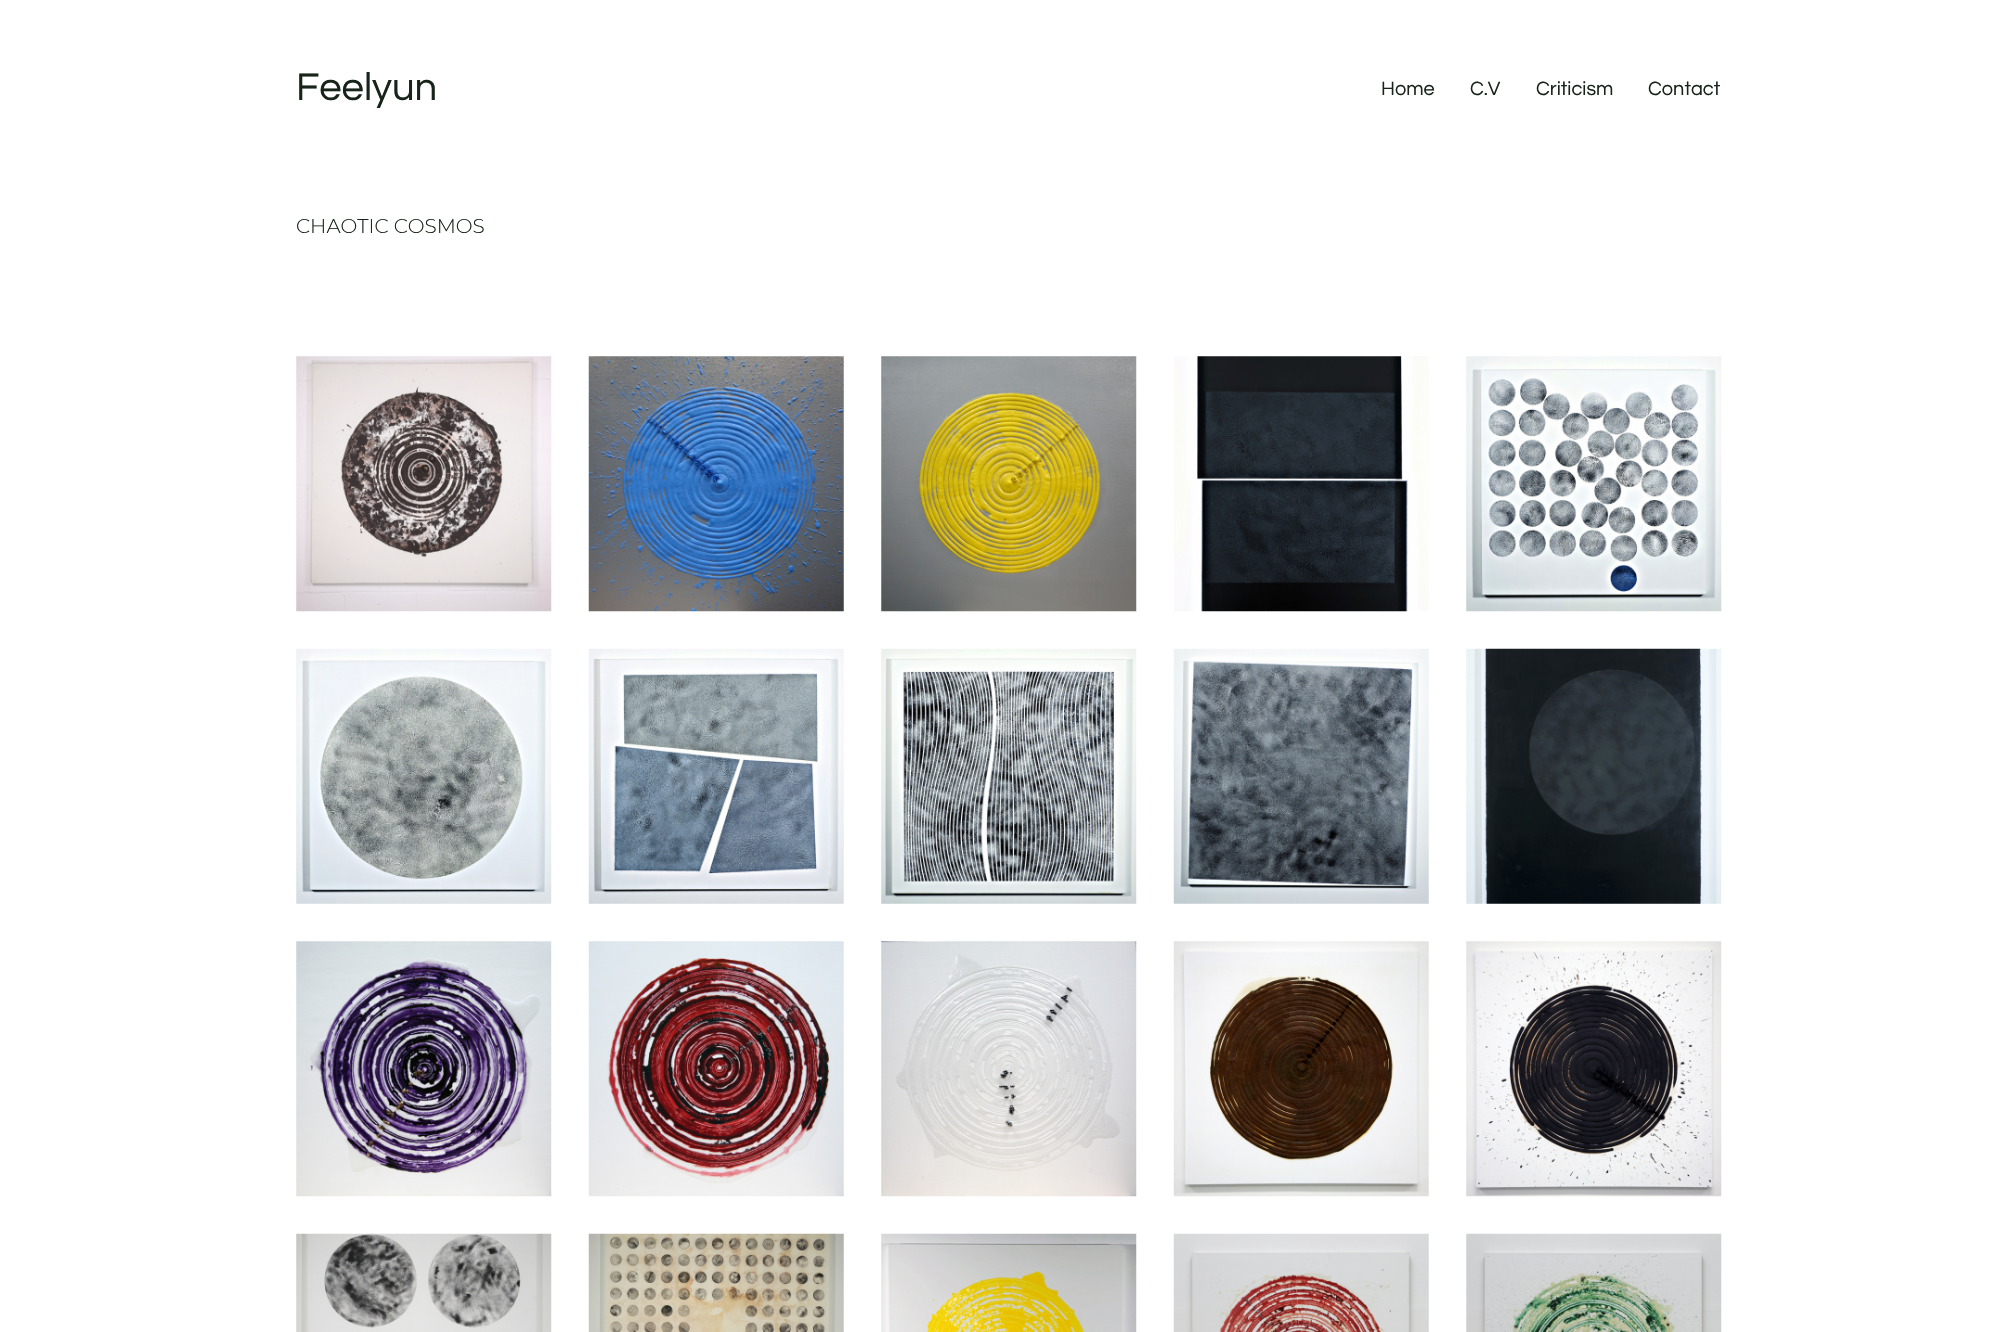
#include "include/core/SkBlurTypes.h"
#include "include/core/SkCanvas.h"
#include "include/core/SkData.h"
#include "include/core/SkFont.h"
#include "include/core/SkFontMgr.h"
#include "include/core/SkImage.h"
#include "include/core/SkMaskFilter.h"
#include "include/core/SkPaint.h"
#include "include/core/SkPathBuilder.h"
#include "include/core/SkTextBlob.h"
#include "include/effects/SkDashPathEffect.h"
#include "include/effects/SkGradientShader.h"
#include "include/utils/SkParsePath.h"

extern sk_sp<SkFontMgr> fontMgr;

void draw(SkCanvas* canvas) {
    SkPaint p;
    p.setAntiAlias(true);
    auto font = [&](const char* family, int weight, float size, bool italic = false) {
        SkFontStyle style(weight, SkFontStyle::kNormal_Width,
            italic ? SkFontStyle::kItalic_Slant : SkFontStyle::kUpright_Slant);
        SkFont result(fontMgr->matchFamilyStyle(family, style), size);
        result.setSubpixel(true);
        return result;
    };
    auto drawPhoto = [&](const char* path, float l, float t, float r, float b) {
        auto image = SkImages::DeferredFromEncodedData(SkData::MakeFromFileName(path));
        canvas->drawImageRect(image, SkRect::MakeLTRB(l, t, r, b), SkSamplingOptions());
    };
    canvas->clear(0xFFFFFFFF);
    auto font1 = font("Questrial", 400, 40);
    p.setColor(0xFF172419);
    canvas->drawString("Feelyun", 296, 100, font1, p);
    auto font2 = font("Questrial", 400, 20);
    {
        const struct { const char* s; float x, y; } items[] = {
            {"Home", 1381, 95},
            {"C.V", 1470, 95},
            {"Criticism", 1536, 95},
            {"Contact", 1648, 95},
        };
        for (auto [s, x, y] : items) {
            canvas->drawString(s, x, y, font2, p);
        }
    }
    auto font3 = font("Montserrat", 300, 20);
    canvas->drawString("CHAOTIC COSMOS", 296, 233, font3, p);
    drawPhoto("media/1.png", 296, 356, 552, 612);
    drawPhoto("media/2.png", 588, 356, 844, 612);
    drawPhoto("media/3.png", 881, 356, 1137, 612);
    drawPhoto("media/4.png", 1174, 356, 1429, 612);
    drawPhoto("media/5.png", 1466, 356, 1722, 612);
    drawPhoto("media/6.png", 296, 648, 552, 904);
    drawPhoto("media/7.png", 588, 648, 844, 904);
    drawPhoto("media/8.png", 881, 648, 1137, 904);
    drawPhoto("media/9.png", 1173, 648, 1429, 904);
    drawPhoto("media/10.png", 1466, 648, 1722, 904);
    drawPhoto("media/11.png", 296, 941, 552, 1197);
    drawPhoto("media/12.png", 588, 941, 844, 1197);
    drawPhoto("media/13.png", 881, 941, 1137, 1197);
    drawPhoto("media/14.png", 1173, 941, 1429, 1197);
    drawPhoto("media/15.png", 1466, 941, 1722, 1197);
    drawPhoto("media/16.png", 296, 1233, 552, 1332);
    drawPhoto("media/17.png", 588, 1233, 844, 1332);
    drawPhoto("media/18.png", 881, 1233, 1137, 1332);
    drawPhoto("media/19.png", 1173, 1233, 1429, 1332);
    drawPhoto("media/20.png", 1466, 1233, 1722, 1332);
}
